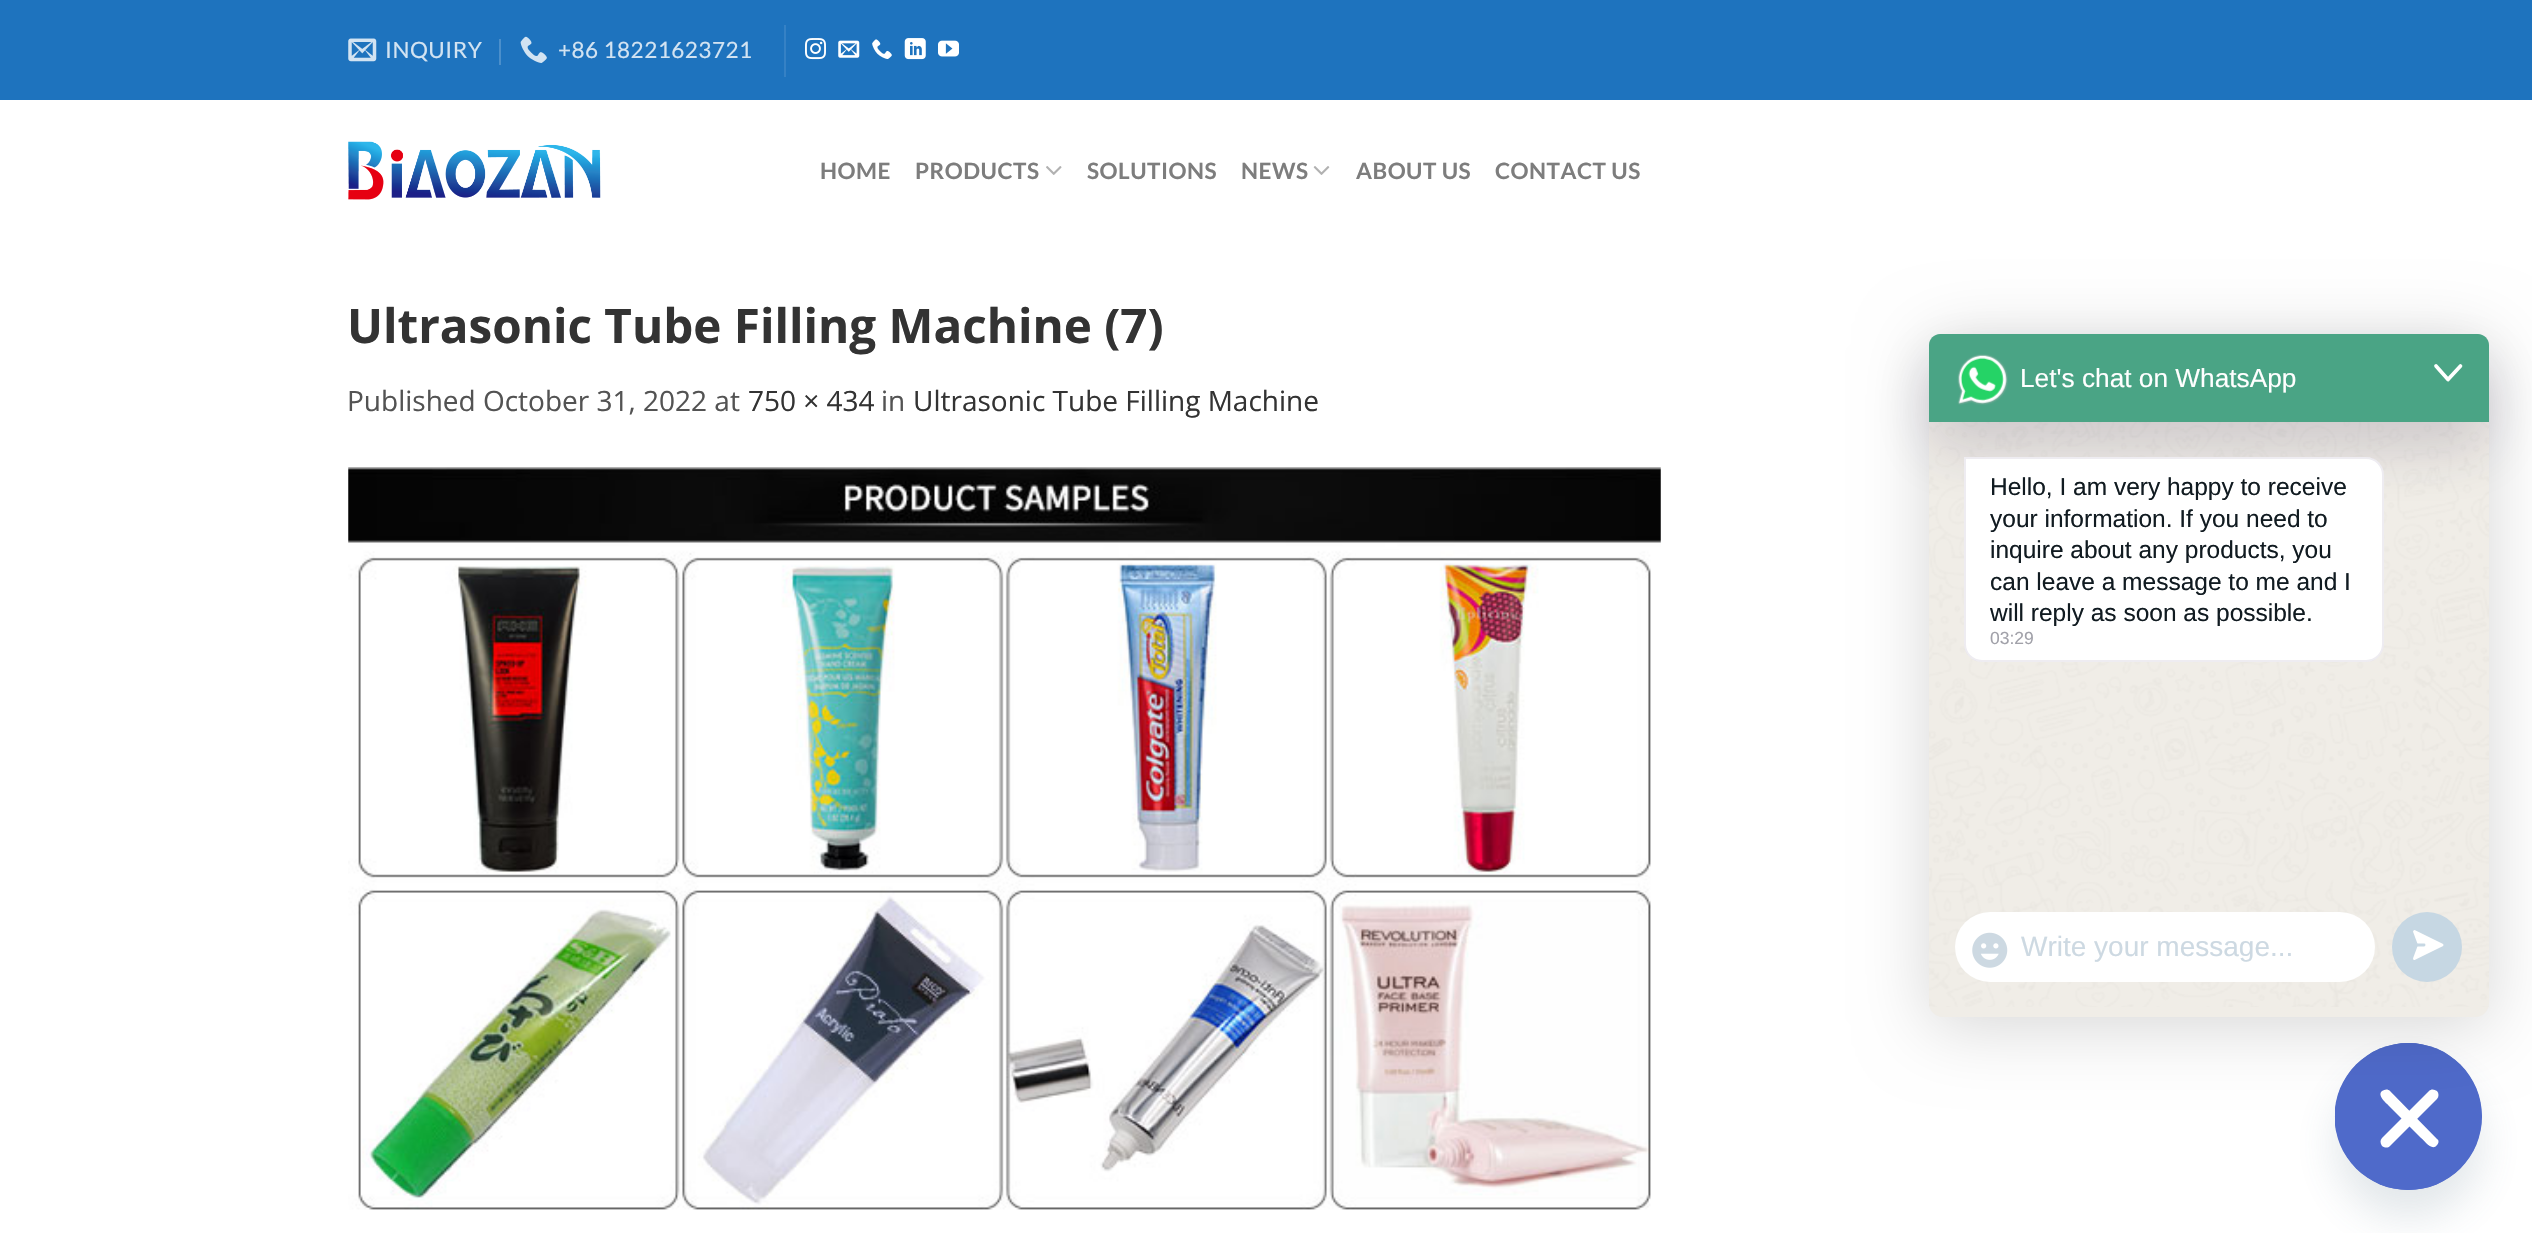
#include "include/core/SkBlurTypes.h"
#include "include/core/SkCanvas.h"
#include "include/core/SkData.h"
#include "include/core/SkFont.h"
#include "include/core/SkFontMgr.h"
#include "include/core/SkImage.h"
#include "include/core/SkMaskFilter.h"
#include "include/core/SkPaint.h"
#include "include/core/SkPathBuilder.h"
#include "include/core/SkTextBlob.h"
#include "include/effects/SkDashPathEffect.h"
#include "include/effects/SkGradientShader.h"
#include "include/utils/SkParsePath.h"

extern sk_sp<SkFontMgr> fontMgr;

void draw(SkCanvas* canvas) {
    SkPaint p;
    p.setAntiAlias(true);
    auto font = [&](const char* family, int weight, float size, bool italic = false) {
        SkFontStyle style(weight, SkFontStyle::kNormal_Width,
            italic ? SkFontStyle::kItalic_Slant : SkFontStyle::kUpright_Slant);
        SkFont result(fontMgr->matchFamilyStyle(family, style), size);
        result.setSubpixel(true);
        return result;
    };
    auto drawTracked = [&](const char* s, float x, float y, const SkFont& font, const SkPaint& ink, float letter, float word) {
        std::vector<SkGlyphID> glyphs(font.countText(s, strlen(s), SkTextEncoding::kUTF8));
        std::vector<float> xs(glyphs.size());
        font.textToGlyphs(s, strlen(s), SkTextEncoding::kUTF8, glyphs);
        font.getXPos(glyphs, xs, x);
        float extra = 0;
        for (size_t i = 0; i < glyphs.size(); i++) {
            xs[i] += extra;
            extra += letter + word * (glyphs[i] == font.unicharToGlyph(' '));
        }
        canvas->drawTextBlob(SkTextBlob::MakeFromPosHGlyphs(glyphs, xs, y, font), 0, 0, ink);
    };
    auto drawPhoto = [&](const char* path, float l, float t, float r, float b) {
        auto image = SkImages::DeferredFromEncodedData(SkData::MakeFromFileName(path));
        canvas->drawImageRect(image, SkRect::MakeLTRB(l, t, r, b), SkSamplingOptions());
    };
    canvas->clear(0xFFFFFFFF);
    p.setColor(0xFF1E73BE);
    canvas->drawRect(SkRect::MakeLTRB(0, 0, 2532, 100), p);
    drawPhoto("media/1.png", 348, 38, 377, 62);
    auto font1 = font("Lato", 400, 22.5f);
    p.setColor(0xFFD2E3F2);
    drawTracked("INQUIRY", 385, 58, font1, p, 0.5f, 0);
    p.setColor(0xFF4B8FCB);
    canvas->drawRect(SkRect::MakeLTRB(499, 39, 501, 65), p);
    drawPhoto("media/2.png", 520, 36, 547, 63);
    p.setColor(0xFFD2E3F2);
    drawTracked("+86 18221623721", 558, 58, font1, p, 0.5f, 0);
    p.setColor(0xFF3581C5);
    canvas->drawRect(SkRect::MakeLTRB(784, 25, 786, 77), p);
    drawPhoto("media/3.png", 805, 38, 826, 60);
    drawPhoto("media/4.png", 838, 40, 860, 58);
    drawPhoto("media/5.png", 872, 39, 892, 59);
    drawPhoto("media/6.png", 904, 38, 926, 60);
    drawPhoto("media/7.png", 938, 40, 959, 57);
    drawPhoto("media/8.png", 348, 141, 601, 200);
    auto font2 = font("Lato", 700, 22.5f);
    p.setColor(0xFF7D7D7D);
    drawTracked("HOME", 820, 179, font2, p, 0.5f, 0);
    drawTracked("PRODUCTS", 915, 179, font2, p, 0.5f, 0);
    drawPhoto("media/9.png", 1046, 166, 1062, 175);
    drawTracked("SOLUTIONS", 1087, 179, font2, p, 0.5f, 0);
    drawTracked("NEWS", 1241, 179, font2, p, 0.5f, 0);
    drawPhoto("media/10.png", 1313, 166, 1330, 175);
    drawTracked("ABOUT US", 1356, 179, font2, p, 0.5f, 0);
    drawTracked("CONTACT US", 1495, 179, font2, p, 0.5f, 0);
    auto font3 = font("Open Sans", 700, 47.6f);
    p.setColor(0xFF333333);
    canvas->drawString("Ultrasonic Tube Filling Machine (7)", 347, 343, font3, p);
    auto font4 = font("Open Sans", 400, 28);
    p.setColor(0xFF535353);
    canvas->drawString("Published October 31, 2022 at", 347, 411, font4, p);
    p.setColor(0xFF333333);
    canvas->drawString("750 × 434", 748, 411, font4, p);
    p.setColor(0xFF535353);
    canvas->drawString("in", 881, 411, font4, p);
    p.setColor(0xFF333333);
    canvas->drawString("Ultrasonic Tube Filling Machine", 913, 411, font4, p);
    drawPhoto("media/11.png", 348, 467, 1661, 1210);
    p.setColor(0x2949687E);
    p.setMaskFilter(SkMaskFilter::MakeBlur(kNormal_SkBlurStyle, 21));
    canvas->drawRoundRect(SkRect::MakeLTRB(2335, 1071, 2482, 1218), 73.5f, 73.5f, p);
    p.setMaskFilter(nullptr);
    p.setColor(0xFF4F6ACA);
    canvas->drawCircle(2408.5f, 1116.5f, 73.5f, p);
    canvas->save();
    canvas->clipRect(SkRect::MakeLTRB(2335, 1043, 2482, 1190));
    canvas->drawCircle(2408, 1116.5f, 73.5f, p);
    canvas->restore();
    p.setColor(0xFFFFFFFF);
    canvas->drawPath(SkPathBuilder().moveTo(2390, 1091).lineTo(2437, 1139).cubicTo(2439, 1140, 2439, 1143, 2437, 1145).cubicTo(2432, 1152, 2424, 1140, 2421, 1138).lineTo(2390, 1107).cubicTo(2389, 1105, 2376, 1096, 2382, 1091).cubicTo(2385, 1089, 2388, 1089, 2390, 1091).close().detach(), p);
    canvas->drawPath(SkPathBuilder().moveTo(2437, 1099).lineTo(2390, 1146).cubicTo(2388, 1148, 2385, 1148, 2382, 1146).cubicTo(2380, 1143, 2380, 1140, 2382, 1138).lineTo(2429, 1091).cubicTo(2431, 1089, 2434, 1089, 2437, 1091).cubicTo(2439, 1093, 2439, 1097, 2437, 1099).close().detach(), p);
    p.setColor(0x29000000);
    p.setMaskFilter(SkMaskFilter::MakeBlur(kNormal_SkBlurStyle, 35));
    canvas->drawRoundRect(SkRect::MakeLTRB(1929, 343, 2489, 1026), 11, 11, p);
    p.setMaskFilter(nullptr);
    p.setColor(0xFFF0EDE7);
    canvas->drawRoundRect(SkRect::MakeLTRB(1929, 334, 2489, 1017), 14, 14, p);
    drawPhoto("media/13.png", 1929, 422, 2489, 1007);
    p.setColor(0x291A0E35);
    p.setMaskFilter(SkMaskFilter::MakeBlur(kNormal_SkBlurStyle, 28));
    canvas->drawRoundRect(SkRect::MakeLTRB(1929, 362, 2489, 450), 11, 11, p);
    p.setMaskFilter(nullptr);
    p.setColor(0xFF4AA485);
    canvas->drawPath(SkPathBuilder().moveTo(1940, 334).lineTo(2478, 334).cubicTo(2484, 334, 2489, 339, 2489, 345).lineTo(2489, 422).lineTo(1929, 422).lineTo(1929, 345).cubicTo(1929, 339, 1934, 334, 1940, 334).close().detach(), p);
    drawPhoto("media/12.png", 1957, 354, 2008, 405);
    auto font5 = font("Liberation Sans", 400, 26.25f);
    p.setColor(0xFFFFFFFF);
    canvas->drawString("Let's chat on WhatsApp", 2020, 387, font5, p);
    p.setStyle(SkPaint::kStroke_Style);
    p.setStrokeWidth(3.7f);
    p.setStrokeCap(SkPaint::kRound_Cap);
    p.setStrokeJoin(SkPaint::kRound_Join);
    canvas->drawPath(SkPathBuilder().moveTo(2436, 366).lineTo(2448, 379.5f).lineTo(2460.5f, 366).detach(), p);
    p.setStyle(SkPaint::kFill_Style);
    canvas->drawPath(SkPathBuilder().moveTo(1964, 457).lineTo(2366, 457).cubicTo(2376, 457, 2384, 465, 2384, 475).lineTo(2384, 644).cubicTo(2384, 654, 2376, 662, 2366, 662).lineTo(1982, 662).cubicTo(1972, 662, 1964, 654, 1964, 644).close().detach(), p);
    p.setStyle(SkPaint::kStroke_Style);
    p.setStrokeWidth(2);
    p.setStrokeCap(SkPaint::kButt_Cap);
    p.setStrokeJoin(SkPaint::kMiter_Join);
    p.setColor(0x14221147);
    canvas->drawPath(SkPathBuilder().moveTo(1965, 458).lineTo(2366, 458).cubicTo(2375.5f, 458, 2383, 465.5f, 2383, 475).lineTo(2383, 644).cubicTo(2383, 653.5f, 2375.5f, 661, 2366, 661).lineTo(1982, 661).cubicTo(1972.5f, 661, 1965, 653.5f, 1965, 644).close().detach(), p);
    auto font6 = font("Liberation Sans", 400, 24.5f);
    p.setStyle(SkPaint::kFill_Style);
    p.setColor(0xFF111B21);
    {
        const struct { const char* s; float x, y; } items[] = {
            {"Hello, I am very happy to receive", 1990, 495},
            {"your information. If you need to", 1990, 527},
            {"inquire about any products, you", 1990, 558},
            {"can leave a message to me and I", 1990, 590},
            {"will reply as soon as possible.", 1990, 621},
        };
        for (auto [s, x, y] : items) {
            canvas->drawString(s, x, y, font6, p);
        }
    }
    auto font7 = font("Liberation Sans", 400, 17.5f);
    p.setColor(0xFFA1A1A9);
    canvas->drawString("03:29", 1990, 644, font7, p);
    p.setColor(0xFFFFFFFF);
    canvas->drawRoundRect(SkRect::MakeLTRB(1955, 912, 2375, 982), 35, 35, p);
    drawPhoto("media/14.png", 1972, 932, 2008, 968);
    auto font8 = font("Liberation Sans", 400, 28);
    p.setColor(0xFFCDD9E2);
    canvas->drawString("Write your message...", 2021, 956, font8, p);
    p.setColor(0xFFC6D7E3);
    canvas->drawCircle(2427, 947, 35, p);
    p.setColor(0xFFFFFFFF);
    canvas->drawPath(SkPathBuilder().moveTo(2442, 945).lineTo(2414.5f, 958.5f).lineTo(2419.5f, 945).lineTo(2414.5f, 931.5f).close().detach(), p);
    p.setStyle(SkPaint::kStroke_Style);
    p.setStrokeWidth(2.9f);
    p.setStrokeCap(SkPaint::kRound_Cap);
    p.setStrokeJoin(SkPaint::kRound_Join);
    canvas->drawPath(SkPathBuilder().moveTo(2442, 945).lineTo(2414.5f, 958.5f).lineTo(2419.5f, 945).lineTo(2414.5f, 931.5f).close().detach(), p);
    p.setColor(0xFFC6D7E3);
    canvas->drawPath(SkPathBuilder().moveTo(2424, 945).lineTo(2415, 945).detach(), p);
}
